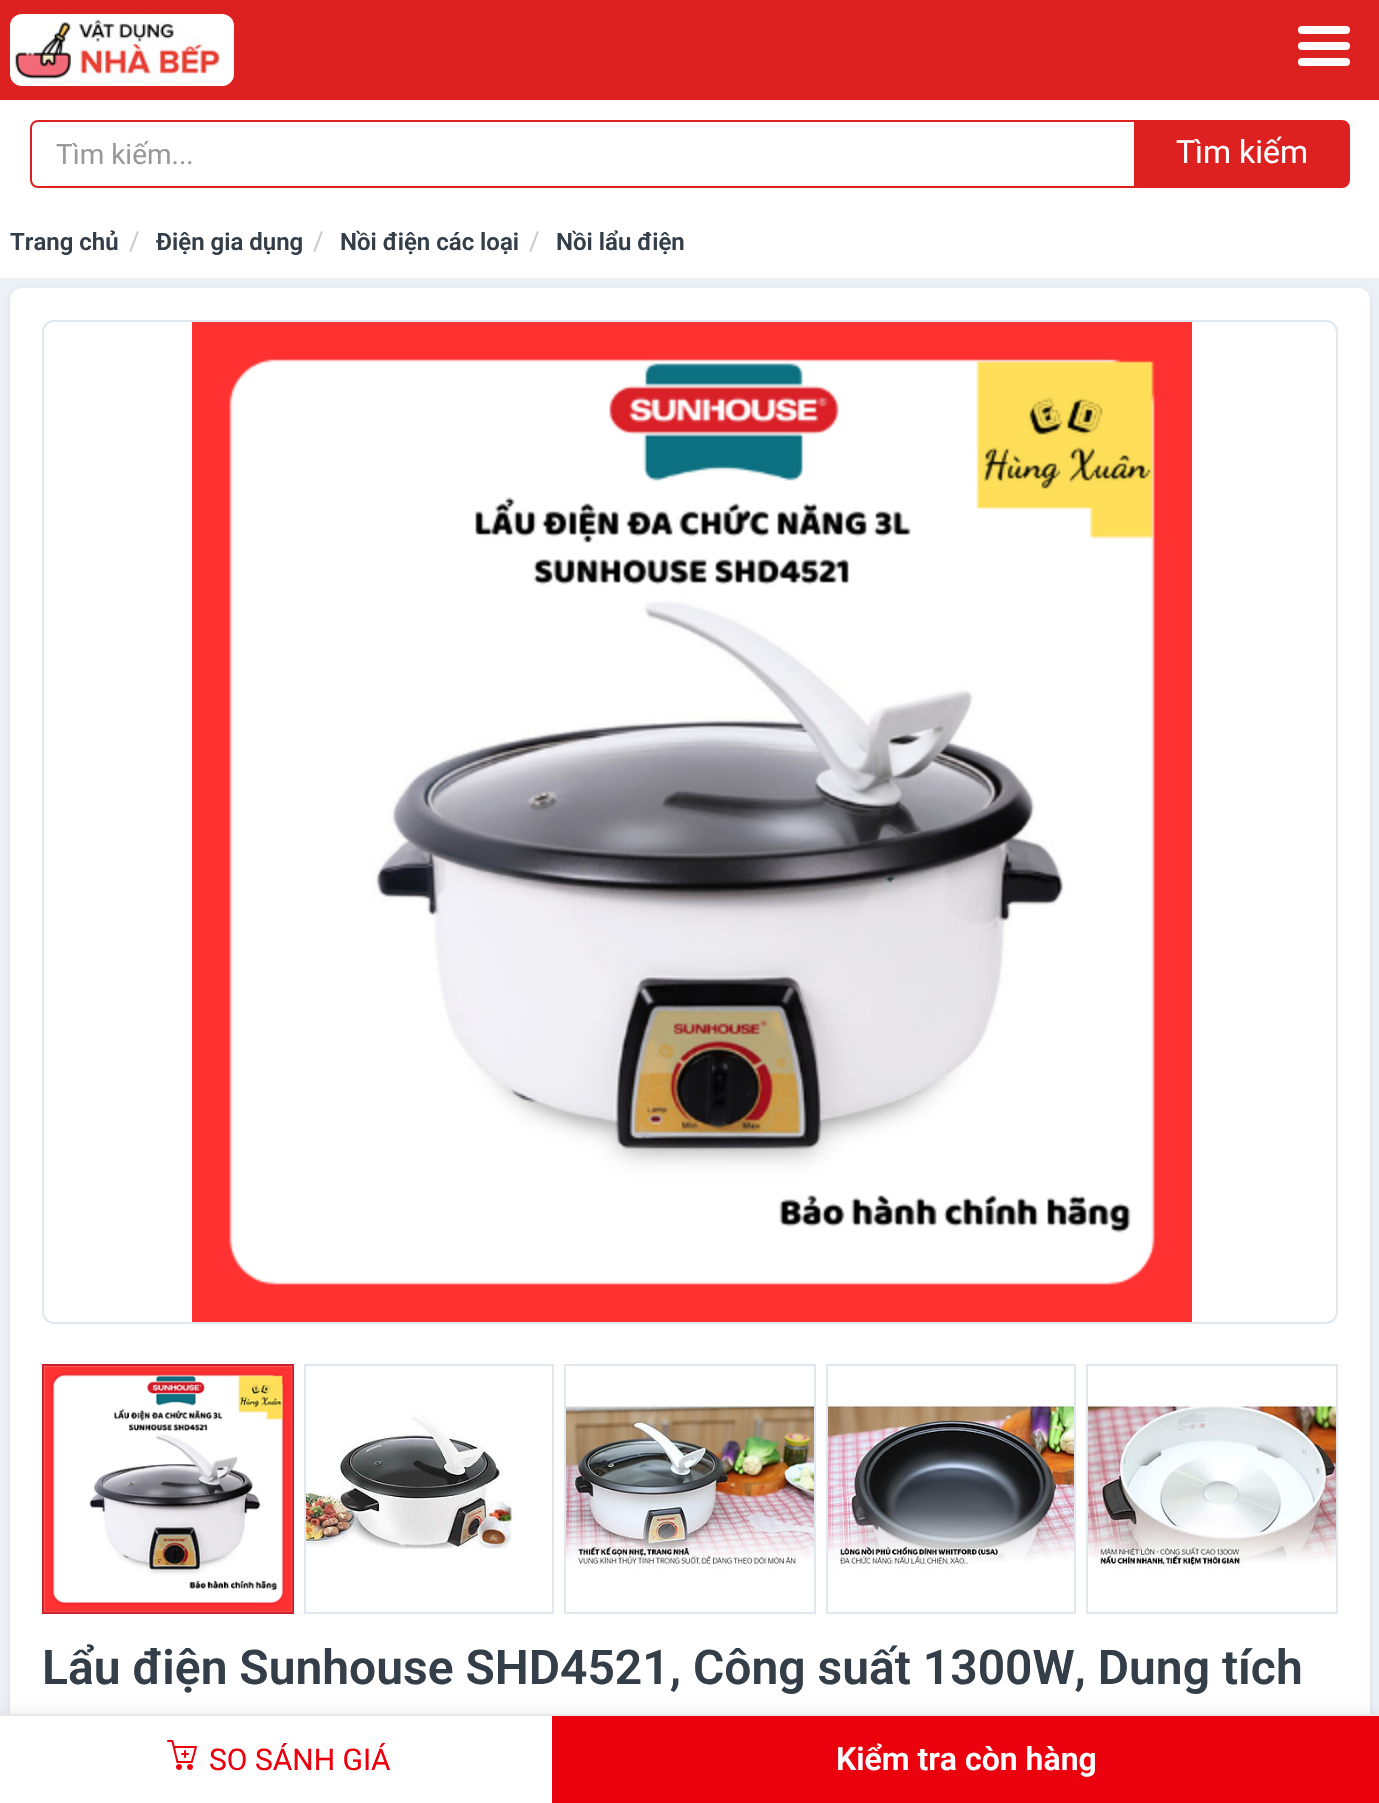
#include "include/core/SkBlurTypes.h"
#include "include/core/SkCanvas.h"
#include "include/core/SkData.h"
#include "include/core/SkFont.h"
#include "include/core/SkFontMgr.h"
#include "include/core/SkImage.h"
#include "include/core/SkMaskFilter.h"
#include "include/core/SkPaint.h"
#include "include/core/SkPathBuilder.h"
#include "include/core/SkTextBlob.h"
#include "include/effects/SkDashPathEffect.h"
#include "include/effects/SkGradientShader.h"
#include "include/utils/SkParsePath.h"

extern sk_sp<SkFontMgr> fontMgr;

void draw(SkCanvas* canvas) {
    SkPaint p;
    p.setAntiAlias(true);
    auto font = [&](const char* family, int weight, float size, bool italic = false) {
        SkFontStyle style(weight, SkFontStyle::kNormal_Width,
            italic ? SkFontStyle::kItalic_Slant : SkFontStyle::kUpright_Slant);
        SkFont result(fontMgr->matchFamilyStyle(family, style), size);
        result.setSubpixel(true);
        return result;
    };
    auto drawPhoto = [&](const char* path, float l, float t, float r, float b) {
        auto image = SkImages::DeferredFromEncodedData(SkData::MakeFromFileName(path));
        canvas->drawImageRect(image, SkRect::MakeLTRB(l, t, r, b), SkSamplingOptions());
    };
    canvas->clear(0xFFFFFFFF);
    p.setColor(0xFFDD2121);
    canvas->drawRect(SkRect::MakeLTRB(0, 0, 1379, 100), p);
    drawPhoto("media/1.png", 10, 14, 234, 86);
    p.setColor(0xFFFFFFFF);
    canvas->drawRoundRect(SkRect::MakeLTRB(1298, 26, 1350, 34), 4, 4, p);
    canvas->drawRoundRect(SkRect::MakeLTRB(1298, 42, 1350, 50), 4, 4, p);
    canvas->drawRoundRect(SkRect::MakeLTRB(1298, 58, 1350, 66), 4, 4, p);
    p.setStyle(SkPaint::kStroke_Style);
    p.setStrokeWidth(2);
    p.setColor(0xFFDD2121);
    canvas->drawPath(SkPathBuilder().moveTo(38, 121).lineTo(1135, 121).lineTo(1135, 187).lineTo(38, 187).cubicTo(34, 187, 31, 184, 31, 180).lineTo(31, 128).cubicTo(31, 124, 34, 121, 38, 121).close().detach(), p);
    auto font1 = font("Roboto", 400, 28);
    p.setStyle(SkPaint::kFill_Style);
    p.setColor(0xFF999999);
    canvas->drawString("Tìm kiếm...", 56, 164, font1, p);
    p.setColor(0xFFDD2121);
    canvas->drawPath(SkPathBuilder().moveTo(1135, 121).lineTo(1342, 121).cubicTo(1346, 121, 1349, 124, 1349, 128).lineTo(1349, 180).cubicTo(1349, 184, 1346, 187, 1342, 187).lineTo(1135, 187).close().detach(), p);
    p.setStyle(SkPaint::kStroke_Style);
    canvas->drawPath(SkPathBuilder().moveTo(1135, 121).lineTo(1342, 121).cubicTo(1346, 121, 1349, 124, 1349, 128).lineTo(1349, 180).cubicTo(1349, 184, 1346, 187, 1342, 187).lineTo(1135, 187).close().detach(), p);
    auto font2 = font("Roboto", 400, 32);
    p.setStyle(SkPaint::kFill_Style);
    p.setColor(0xFFFFFFFF);
    canvas->drawString("Tìm kiếm", 1176, 163, font2, p);
    auto font3 = font("Roboto", 600, 24);
    p.setColor(0xFF333E48);
    canvas->drawString("Trang chủ", 10, 250, font3, p);
    auto font4 = font("Roboto", 400, 26);
    p.setColor(0xFFCCCCCC);
    canvas->drawString("/", 129, 250, font4, p);
    p.setColor(0xFF333E48);
    canvas->drawString("Điện gia dụng", 156, 250, font3, p);
    p.setColor(0xFFCCCCCC);
    canvas->drawString("/", 313, 250, font4, p);
    p.setColor(0xFF333E48);
    canvas->drawString("Nồi điện các loại", 340, 250, font3, p);
    p.setColor(0xFFCCCCCC);
    canvas->drawString("/", 529, 250, font4, p);
    p.setColor(0xFF333E48);
    canvas->drawString("Nồi lẩu điện", 556, 250, font3, p);
    p.setColor(0xFFECF1F7);
    canvas->drawRect(SkRect::MakeLTRB(0, 278, 1379, 1714), p);
    p.setColor(0x14000000);
    p.setMaskFilter(SkMaskFilter::MakeBlur(kNormal_SkBlurStyle, 3));
    canvas->drawRoundRect(SkRect::MakeLTRB(10, 290, 1370, 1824), 12, 12, p);
    p.setMaskFilter(nullptr);
    p.setColor(0xFFFFFFFF);
    canvas->drawRoundRect(SkRect::MakeLTRB(10, 288, 1370, 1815), 12, 12, p);
    p.setStyle(SkPaint::kStroke_Style);
    p.setColor(0xFFDFE7EF);
    canvas->drawRoundRect(SkRect::MakeLTRB(43, 321, 1337, 1323), 11, 11, p);
    drawPhoto("media/2.png", 192, 322, 1192, 1322);
    p.setColor(0xFFC72129);
    canvas->drawRect(SkRect::MakeLTRB(43, 1365, 293, 1613), p);
    drawPhoto("media/3.png", 43, 1365, 293, 1613);
    p.setColor(0xFFDFE7EF);
    canvas->drawRect(SkRect::MakeLTRB(305, 1365, 553, 1613), p);
    drawPhoto("media/4.png", 306, 1415, 514, 1549);
    canvas->drawRect(SkRect::MakeLTRB(565, 1365, 815, 1613), p);
    drawPhoto("media/5.png", 566, 1403, 814, 1570);
    canvas->drawRect(SkRect::MakeLTRB(827, 1365, 1075, 1613), p);
    drawPhoto("media/6.png", 828, 1401, 1074, 1570);
    canvas->drawRect(SkRect::MakeLTRB(1087, 1365, 1337, 1613), p);
    drawPhoto("media/7.png", 1088, 1401, 1336, 1570);
    auto font5 = font("Roboto", 600, 48);
    p.setStyle(SkPaint::kFill_Style);
    p.setColor(0xFF333E48);
    canvas->drawString("Lẩu điện Sunhouse SHD4521, Công suất 1300W, Dung tích", 42, 1684, font5, p);
    p.setColor(0x17000000);
    p.setMaskFilter(SkMaskFilter::MakeBlur(kNormal_SkBlurStyle, 6));
    canvas->drawRect(SkRect::MakeLTRB(0, 1714, 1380, 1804), p);
    p.setMaskFilter(nullptr);
    p.setColor(0xFFFFFFFF);
    canvas->drawRect(SkRect::MakeLTRB(0, 1716, 552, 1803), p);
    p.setColor(0xFFE8E8E8);
    canvas->drawRect(SkRect::MakeLTRB(0, 1714, 1379, 1716), p);
    drawPhoto("media/8.png", 167, 1740, 197, 1770);
    auto font6 = font("Roboto", 400, 30);
    p.setColor(0xFFEB000E);
    canvas->drawString("SO SÁNH GIÁ", 209, 1770, font6, p);
    canvas->drawRect(SkRect::MakeLTRB(552, 1716, 1379, 1803), p);
    auto font7 = font("Roboto", 600, 32);
    p.setColor(0xFFFFFFFF);
    canvas->drawString("Kiểm tra còn hàng", 836, 1770, font7, p);
}
